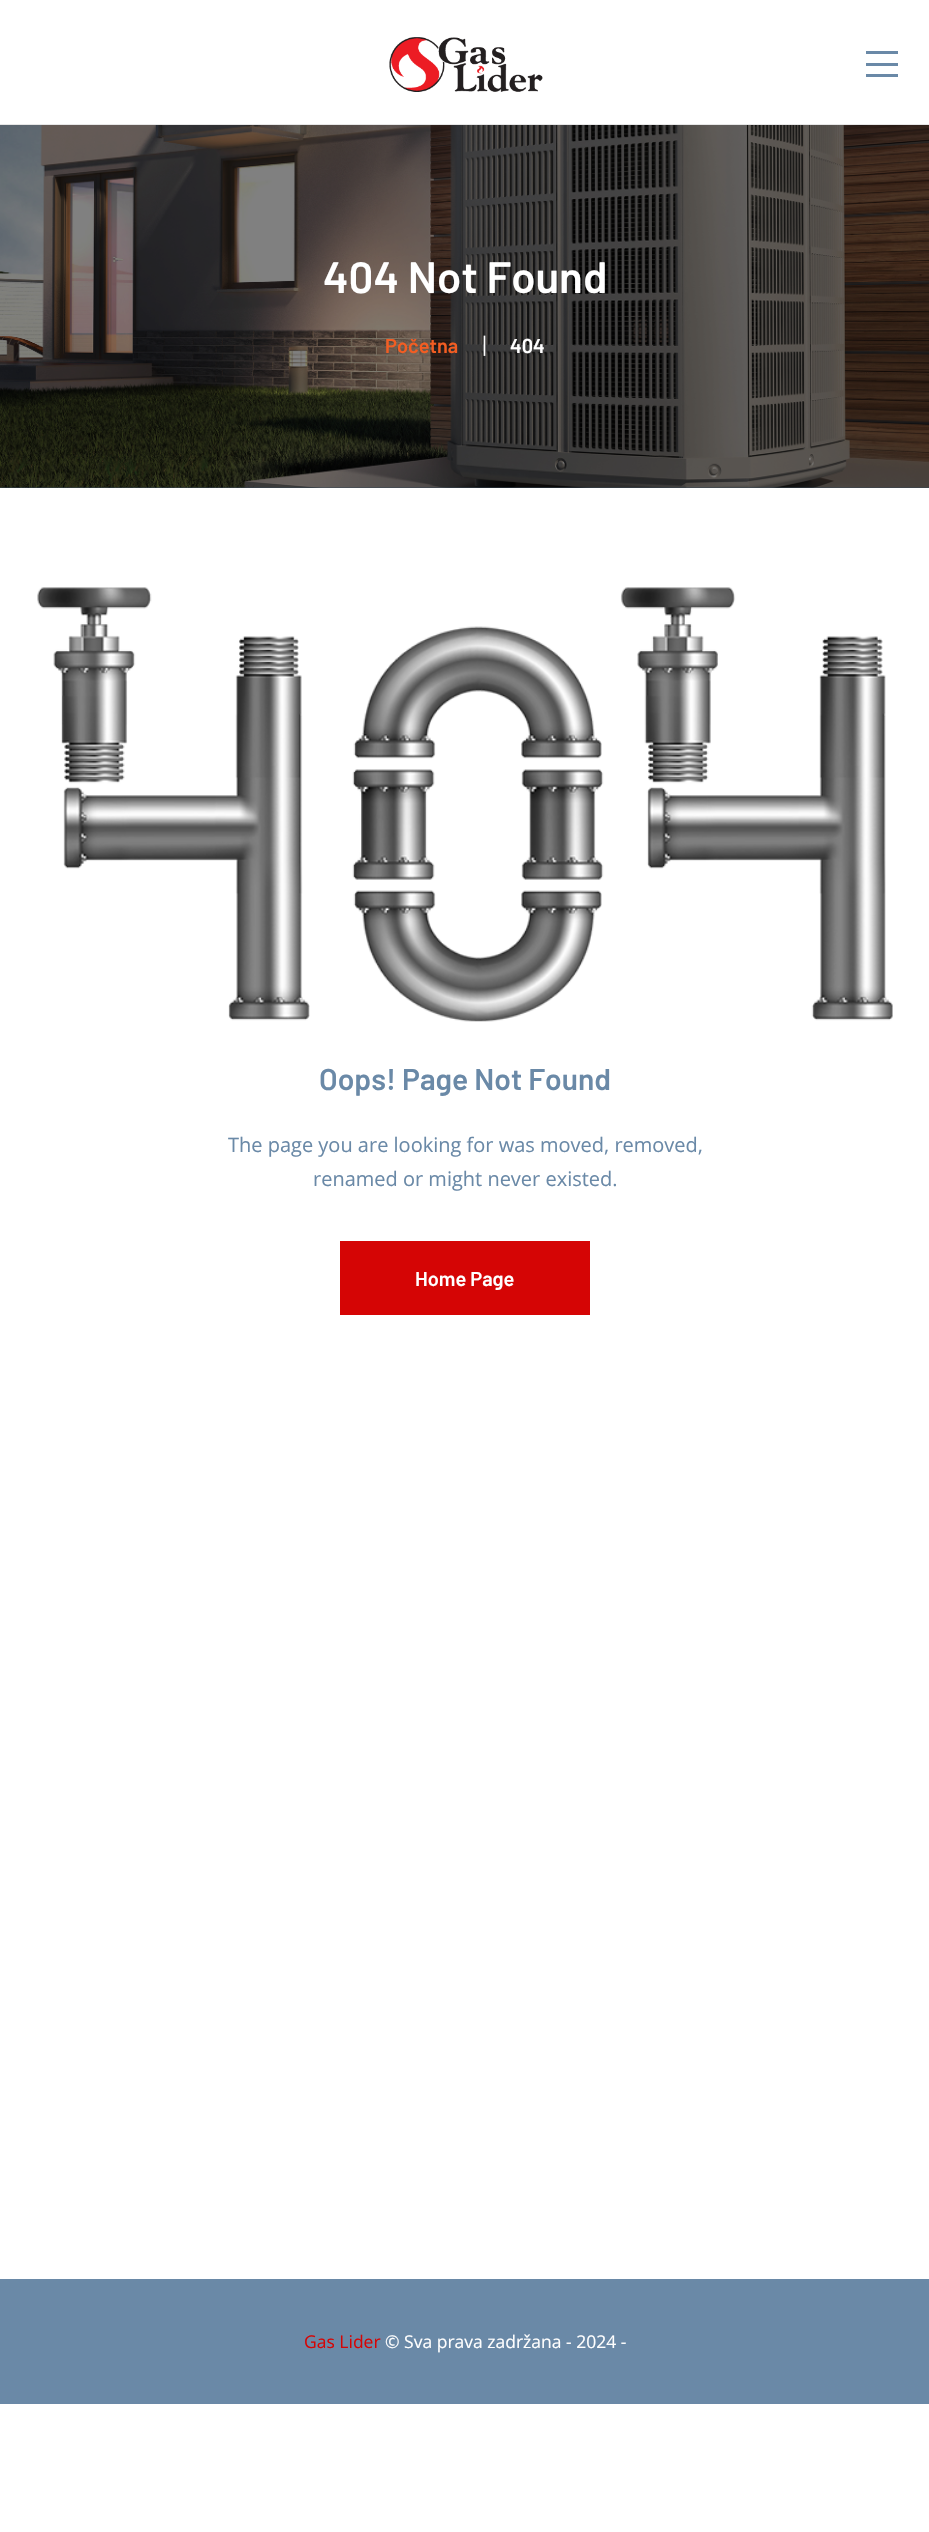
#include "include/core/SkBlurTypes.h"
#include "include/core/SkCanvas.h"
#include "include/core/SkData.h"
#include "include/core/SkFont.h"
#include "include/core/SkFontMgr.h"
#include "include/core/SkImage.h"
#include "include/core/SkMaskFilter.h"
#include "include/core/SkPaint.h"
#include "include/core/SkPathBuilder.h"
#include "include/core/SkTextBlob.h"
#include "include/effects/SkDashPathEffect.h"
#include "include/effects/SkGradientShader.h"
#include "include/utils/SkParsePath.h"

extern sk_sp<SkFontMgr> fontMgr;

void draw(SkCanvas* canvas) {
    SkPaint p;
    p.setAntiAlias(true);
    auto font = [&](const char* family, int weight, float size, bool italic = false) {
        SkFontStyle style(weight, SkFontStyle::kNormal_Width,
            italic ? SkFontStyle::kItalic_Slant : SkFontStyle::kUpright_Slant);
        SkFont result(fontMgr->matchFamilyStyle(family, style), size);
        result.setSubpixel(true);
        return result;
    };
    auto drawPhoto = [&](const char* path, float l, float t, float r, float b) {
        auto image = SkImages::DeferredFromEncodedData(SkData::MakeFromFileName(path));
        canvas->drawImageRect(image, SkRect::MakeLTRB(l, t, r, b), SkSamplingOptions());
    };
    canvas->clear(0xFFFFFFFF);
    drawPhoto("media/1.png", 389, 37, 543, 92);
    {
        const struct { float l, t, r, b; SkColor color; } items[] = {
            {866, 51, 898, 54, 0xFF6A89A7},
            {866, 63, 898, 66, 0xFF6A89A7},
            {866, 74, 898, 77, 0xFF6A89A7},
            {0, 124, 929, 125, 0xFFE6E6E6},
            {0, 487, 929, 488, 0xFF354554},
        };
        for (auto [l, t, r, b, color] : items) {
            p.setColor(color);
            canvas->drawRect(SkRect::MakeLTRB(l, t, r, b), p);
        }
    }
    drawPhoto("media/2.png", 0, 125, 929, 488);
    auto font1 = font("Barlow", 600, 43.75f);
    p.setColor(0xFFFFFFFF);
    canvas->drawString("404 Not Found", 323, 293, font1, p);
    auto font2 = font("Barlow", 600, 20);
    p.setColor(0xFFF35D22);
    canvas->drawString("Početna", 385, 353, font2, p);
    auto font3 = font("Open Sans", 400, 20);
    p.setColor(0xFFFFFFFF);
    canvas->drawString("|", 479, 351, font3, p);
    canvas->drawString("404", 510, 353, font2, p);
    drawPhoto("media/3.png", 37, 587, 893, 1022);
    auto font4 = font("Barlow", 600, 30);
    p.setColor(0xFF6A89A7);
    canvas->drawString("Oops! Page Not Found", 319, 1090, font4, p);
    canvas->drawString("The page you are looking for was moved, removed,", 228, 1152, font3, p);
    canvas->drawString("renamed or might never existed.", 313, 1186, font3, p);
    p.setColor(0xFFD50505);
    canvas->drawRect(SkRect::MakeLTRB(340, 1241, 590, 1315), p);
    p.setColor(0xFFFFFFFF);
    canvas->drawString("Home Page", 415, 1286, font2, p);
    p.setColor(0xFF6A89A7);
    canvas->drawRect(SkRect::MakeLTRB(0, 2279, 929, 2404), p);
    auto font5 = font("Open Sans", 400, 17.5f);
    p.setColor(0xFFD50505);
    canvas->drawString("Gas Lider", 304, 2348, font5, p);
    p.setColor(0xFFFFFFFF);
    canvas->drawString("© Sva prava zadržana - 2024 -", 385, 2348, font5, p);
}
